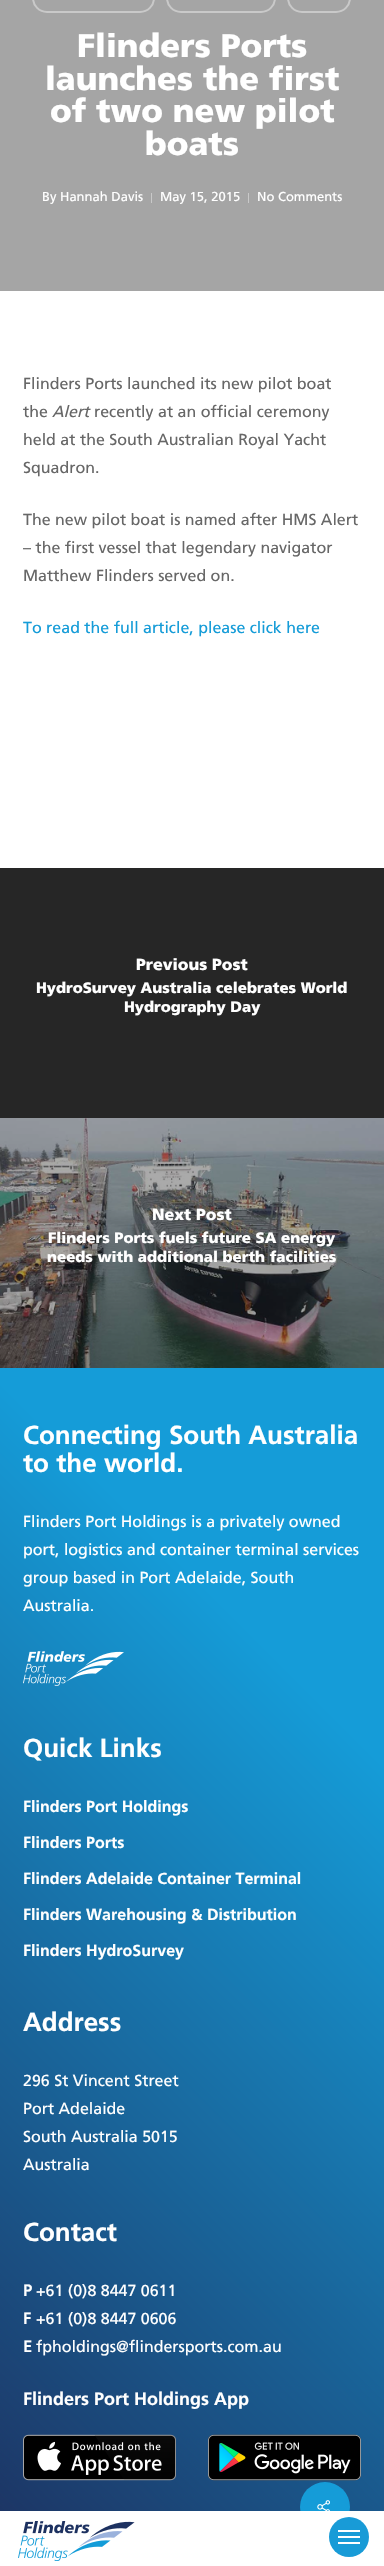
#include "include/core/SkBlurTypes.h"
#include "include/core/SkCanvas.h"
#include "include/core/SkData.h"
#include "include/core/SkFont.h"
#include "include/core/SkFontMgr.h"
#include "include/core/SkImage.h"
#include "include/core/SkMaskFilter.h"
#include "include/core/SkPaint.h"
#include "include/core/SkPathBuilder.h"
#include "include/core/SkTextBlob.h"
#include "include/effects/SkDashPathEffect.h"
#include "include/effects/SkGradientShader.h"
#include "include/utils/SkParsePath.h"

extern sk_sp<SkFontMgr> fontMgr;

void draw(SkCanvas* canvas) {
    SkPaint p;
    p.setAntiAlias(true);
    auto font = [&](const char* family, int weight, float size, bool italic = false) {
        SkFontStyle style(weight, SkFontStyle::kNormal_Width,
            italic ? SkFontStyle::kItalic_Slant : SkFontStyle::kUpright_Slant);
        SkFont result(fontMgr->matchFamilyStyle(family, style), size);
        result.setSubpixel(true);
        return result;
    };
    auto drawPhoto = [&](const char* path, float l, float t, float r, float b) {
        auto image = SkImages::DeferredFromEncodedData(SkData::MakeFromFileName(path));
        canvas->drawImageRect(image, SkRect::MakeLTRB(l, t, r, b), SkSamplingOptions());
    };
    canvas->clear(0xFFFFFFFF);
    p.setColor(0xFFA5A5A5);
    canvas->drawRect(SkRect::MakeLTRB(0, 0, 384, 291), p);
    p.setStyle(SkPaint::kStroke_Style);
    p.setStrokeWidth(2);
    p.setColor(0xFFC9C9C9);
    canvas->drawRoundRect(SkRect::MakeLTRB(33, -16, 154, 12), 14, 14, p);
    canvas->drawRoundRect(SkRect::MakeLTRB(167, -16, 275, 12), 14, 14, p);
    canvas->drawRoundRect(SkRect::MakeLTRB(288, -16, 350, 12), 14, 14, p);
    auto font1 = font("Frutiger", 900, 32.5f);
    p.setStyle(SkPaint::kFill_Style);
    p.setColor(0xFFFFFFFF);
    {
        const struct { const char* s; float x, y; } items[] = {
            {"Flinders Ports", 77, 57},
            {"launches the first", 45, 90},
            {"of two new pilot", 50, 122},
            {"boats", 145, 155},
        };
        for (auto [s, x, y] : items) {
            canvas->drawString(s, x, y, font1, p);
        }
    }
    auto font2 = font("Frutiger", 400, 13);
    canvas->drawString("By", 42, 201, font2, p);
    canvas->drawString("Hannah Davis", 60, 201, font2, p);
    p.setColor(0xFFC9C9C9);
    canvas->drawRect(SkRect::MakeLTRB(151, 193, 152, 203), p);
    p.setColor(0xFFFFFFFF);
    canvas->drawString("May 15, 2015", 160, 201, font2, p);
    p.setColor(0xFFC9C9C9);
    canvas->drawRect(SkRect::MakeLTRB(248, 193, 249, 203), p);
    p.setColor(0xFFFFFFFF);
    canvas->drawString("No Comments", 257, 201, font2, p);
    auto font3 = font("Frutiger", 400, 16);
    p.setColor(0xFF676767);
    canvas->drawString("Flinders Ports launched its new pilot boat", 23, 389, font3, p);
    canvas->drawString("the", 23, 417, font3, p);
    auto font4 = font("Frutiger", 400, 16, true);
    canvas->drawString("Alert", 52, 417, font4, p);
    {
        const struct { const char* s; float x, y; } items[] = {
            {"recently at an official ceremony", 94, 417},
            {"held at the South Australian Royal Yacht", 23, 445},
            {"Squadron.", 23, 473},
            {"The new pilot boat is named after HMS Alert", 23, 525},
            {"– the first vessel that legendary navigator", 23, 553},
            {"Matthew Flinders served on.", 23, 581},
        };
        for (auto [s, x, y] : items) {
            canvas->drawString(s, x, y, font3, p);
        }
    }
    p.setColor(0xFF159CD8);
    canvas->drawString("To read the full article, please click here", 23, 633, font3, p);
    p.setColor(0xFF262626);
    canvas->drawRect(SkRect::MakeLTRB(0, 868, 384, 1118), p);
    auto font5 = font("Frutiger", 900, 16);
    p.setColor(0xFFFFFFFF);
    canvas->drawString("Previous Post", 136, 970, font5, p);
    auto font6 = font("Frutiger", 900, 15);
    canvas->drawString("HydroSurvey Australia celebrates World", 36, 993, font6, p);
    canvas->drawString("Hydrography Day", 124, 1012, font6, p);
    drawPhoto("media/1.png", 0, 1118, 384, 1368);
    canvas->drawString("Next Post", 152, 1220, font5, p);
    canvas->drawString("Flinders Ports fuels future SA energy", 48, 1243, font6, p);
    canvas->drawString("needs with additional berth facilities", 47, 1262, font6, p);
    {
        const SkColor colors[] = {0xFF1D3160, 0xFF159CD8};
        const float stops[] = {0, 0.75f};
        const SkPoint ends[] = {{-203, 2363}, {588, 1572}};
        p.setShader(SkGradientShader::MakeLinear(ends, colors, stops, 2, SkTileMode::kClamp));
        p.setAlpha(255);
    }
    canvas->drawRect(SkRect::MakeLTRB(0, 1368, 384, 2511), p);
    auto font7 = font("Frutiger", 700, 26);
    p.setShader(nullptr);
    p.setColor(0xFFFFFFFF);
    canvas->drawString("Connecting South Australia", 23, 1444, font7, p);
    canvas->drawString("to the world.", 23, 1472, font7, p);
    {
        const struct { const char* s; float x, y; } items[] = {
            {"Flinders Port Holdings is a privately owned", 23, 1527},
            {"port, logistics and container terminal services", 23, 1555},
            {"group based in Port Adelaide, South", 23, 1583},
            {"Australia.", 23, 1611},
        };
        for (auto [s, x, y] : items) {
            canvas->drawString(s, x, y, font3, p);
        }
    }
    drawPhoto("media/2.png", 23, 1651, 124, 1686);
    canvas->drawString("Quick Links", 23, 1757, font7, p);
    auto font8 = font("Frutiger", 700, 16);
    {
        const struct { const char* s; float x, y; } items[] = {
            {"Flinders Port Holdings", 23, 1812},
            {"Flinders Ports", 23, 1848},
            {"Flinders Adelaide Container Terminal", 23, 1884},
            {"Flinders Warehousing & Distribution", 23, 1920},
            {"Flinders HydroSurvey", 23, 1956},
        };
        for (auto [s, x, y] : items) {
            canvas->drawString(s, x, y, font8, p);
        }
    }
    canvas->drawString("Address", 23, 2031, font7, p);
    {
        const struct { const char* s; float x, y; } items[] = {
            {"296 St Vincent Street", 23, 2086},
            {"Port Adelaide", 23, 2114},
            {"South Australia 5015", 23, 2142},
            {"Australia", 23, 2170},
        };
        for (auto [s, x, y] : items) {
            canvas->drawString(s, x, y, font3, p);
        }
    }
    canvas->drawString("Contact", 23, 2241, font7, p);
    auto font9 = font("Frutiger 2", 700, 16);
    canvas->drawString("P", 23, 2296, font9, p);
    canvas->drawString("+61 (0)8 8447 0611", 36, 2296, font3, p);
    canvas->drawString("F", 23, 2324, font9, p);
    canvas->drawString("+61 (0)8 8447 0606", 36, 2324, font3, p);
    canvas->drawString("E", 23, 2352, font9, p);
    canvas->drawString("fpholdings@flindersports.com.au", 36, 2352, font3, p);
    auto font10 = font("Frutiger", 700, 18);
    canvas->drawString("Flinders Port Holdings App", 23, 2405, font10, p);
    drawPhoto("media/3.png", 23, 2434, 176, 2481);
    drawPhoto("media/4.png", 208, 2434, 361, 2481);
    p.setColor(0xFF159CD8);
    canvas->drawCircle(325, 2507, 25, p);
    drawPhoto("media/5.png", 317, 2500, 330, 2511);
    p.setColor(0xFFFFFFFF);
    canvas->drawRect(SkRect::MakeLTRB(300, 2511, 350, 2532), p);
    drawPhoto("media/6.png", 18, 2521, 135, 2561);
    p.setColor(0xFF189BD7);
    canvas->drawCircle(349, 2537, 20, p);
    {
        const struct { float l, t, r, b; SkColor color; } items[] = {
            {338, 2530, 360, 2532, 0xFFFFFFFF},
            {338, 2542, 360, 2544, 0xFFFFFFFF},
            {338, 2536, 360, 2538, 0xFFFFFFFF},
        };
        for (auto [l, t, r, b, color] : items) {
            p.setColor(color);
            canvas->drawRect(SkRect::MakeLTRB(l, t, r, b), p);
        }
    }
}
